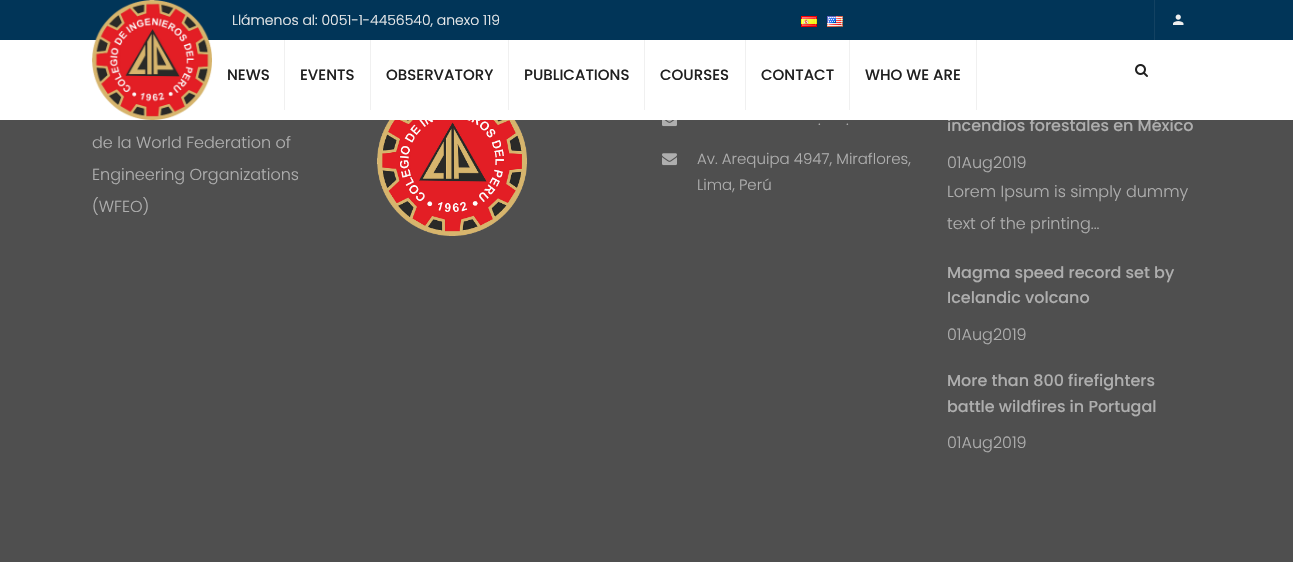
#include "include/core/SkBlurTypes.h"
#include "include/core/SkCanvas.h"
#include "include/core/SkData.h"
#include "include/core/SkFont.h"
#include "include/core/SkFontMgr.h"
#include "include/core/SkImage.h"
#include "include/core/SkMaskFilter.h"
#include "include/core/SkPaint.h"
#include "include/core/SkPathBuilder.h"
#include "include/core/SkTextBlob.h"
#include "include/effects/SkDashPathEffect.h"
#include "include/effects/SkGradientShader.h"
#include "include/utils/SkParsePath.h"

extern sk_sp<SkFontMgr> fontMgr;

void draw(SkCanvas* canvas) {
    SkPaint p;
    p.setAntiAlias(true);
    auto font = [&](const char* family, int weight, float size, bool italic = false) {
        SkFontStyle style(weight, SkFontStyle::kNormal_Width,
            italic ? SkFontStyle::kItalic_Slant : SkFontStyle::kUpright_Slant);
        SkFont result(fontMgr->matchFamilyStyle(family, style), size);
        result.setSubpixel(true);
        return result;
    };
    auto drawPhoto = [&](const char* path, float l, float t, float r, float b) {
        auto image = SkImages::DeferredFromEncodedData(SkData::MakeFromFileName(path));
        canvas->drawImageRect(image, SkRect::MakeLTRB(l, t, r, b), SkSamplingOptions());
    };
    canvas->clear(0xFF4F4F4F);
    auto font1 = font("Poppins", 500, 16);
    p.setColor(0xFFAEAEAE);
    canvas->drawString("incendios forestales en México", 947, 131, font1, p);
    p.setColor(0xFFFFFFFF);
    canvas->drawRect(SkRect::MakeLTRB(0, 40, 1293, 120), p);
    p.setColor(0xFF013558);
    canvas->drawRect(SkRect::MakeLTRB(0, 0, 1293, 40), p);
    auto font2 = font("Poppins", 300, 14);
    p.setColor(0xFFEEEEEE);
    canvas->drawString("Llámenos al: 0051-1-4456540, anexo 119", 232, 25, font2, p);
    drawPhoto("media/1.png", 801, 16, 817, 27);
    drawPhoto("media/2.png", 827, 16, 843, 27);
    p.setColor(0xFF134262);
    canvas->drawRect(SkRect::MakeLTRB(1154, 0, 1155, 40), p);
    drawPhoto("media/3.png", 1173, 14, 1184, 25);
    drawPhoto("media/4.png", 92, 0, 212, 120);
    p.setColor(0xFFF0F0F0);
    canvas->drawRect(SkRect::MakeLTRB(284, 40, 285, 110), p);
    auto font3 = font("Poppins", 500, 15);
    p.setColor(0xFF202020);
    canvas->drawString("NEWS", 227, 80, font3, p);
    p.setColor(0xFFF0F0F0);
    canvas->drawRect(SkRect::MakeLTRB(370, 40, 371, 110), p);
    p.setColor(0xFF202020);
    canvas->drawString("EVENTS", 300, 80, font3, p);
    p.setColor(0xFFF0F0F0);
    canvas->drawRect(SkRect::MakeLTRB(508, 40, 509, 110), p);
    p.setColor(0xFF202020);
    canvas->drawString("OBSERVATORY", 386, 80, font3, p);
    p.setColor(0xFFF0F0F0);
    canvas->drawRect(SkRect::MakeLTRB(644, 40, 645, 110), p);
    p.setColor(0xFF202020);
    canvas->drawString("PUBLICATIONS", 524, 80, font3, p);
    p.setColor(0xFFF0F0F0);
    canvas->drawRect(SkRect::MakeLTRB(745, 40, 746, 110), p);
    p.setColor(0xFF202020);
    canvas->drawString("COURSES", 660, 80, font3, p);
    p.setColor(0xFFF0F0F0);
    canvas->drawRect(SkRect::MakeLTRB(849, 40, 850, 110), p);
    p.setColor(0xFF202020);
    canvas->drawString("CONTACT", 761, 80, font3, p);
    p.setColor(0xFFF0F0F0);
    canvas->drawRect(SkRect::MakeLTRB(976, 40, 977, 110), p);
    p.setColor(0xFF202020);
    canvas->drawString("WHO WE ARE", 865, 80, font3, p);
    drawPhoto("media/5.png", 1135, 64, 1148, 77);
    auto font4 = font("Poppins", 300, 16);
    p.setColor(0xFFAEAEAE);
    {
        const struct { const char* s; float x, y; } items[] = {
            {"de la World Federation of", 92, 148},
            {"Engineering Organizations", 92, 180},
            {"(WFEO)", 92, 212},
        };
        for (auto [s, x, y] : items) {
            canvas->drawString(s, x, y, font4, p);
        }
    }
    drawPhoto("media/6.png", 377, 120, 527, 236);
    drawPhoto("media/7.png", 662, 120, 677, 127);
    auto font5 = font("Poppins", 300, 15);
    canvas->drawString(".", 818, 125, font5, p);
    canvas->drawString(".", 846, 125, font5, p);
    drawPhoto("media/8.png", 662, 153, 677, 166);
    canvas->drawString("Av. Arequipa 4947, Miraflores,", 697, 164, font5, p);
    canvas->drawString("Lima, Perú", 697, 190, font5, p);
    {
        const struct { const char* s; float x, y; } items[] = {
            {"01Aug2019", 947, 168},
            {"Lorem Ipsum is simply dummy", 947, 197},
            {"text of the printing...", 947, 229},
        };
        for (auto [s, x, y] : items) {
            canvas->drawString(s, x, y, font4, p);
        }
    }
    canvas->drawString("Magma speed record set by", 947, 278, font1, p);
    canvas->drawString("Icelandic volcano", 947, 303, font1, p);
    canvas->drawString("01Aug2019", 947, 340, font4, p);
    canvas->drawString("More than 800 firefighters", 947, 386, font1, p);
    canvas->drawString("battle wildfires in Portugal", 947, 412, font1, p);
    canvas->drawString("01Aug2019", 947, 448, font4, p);
}
